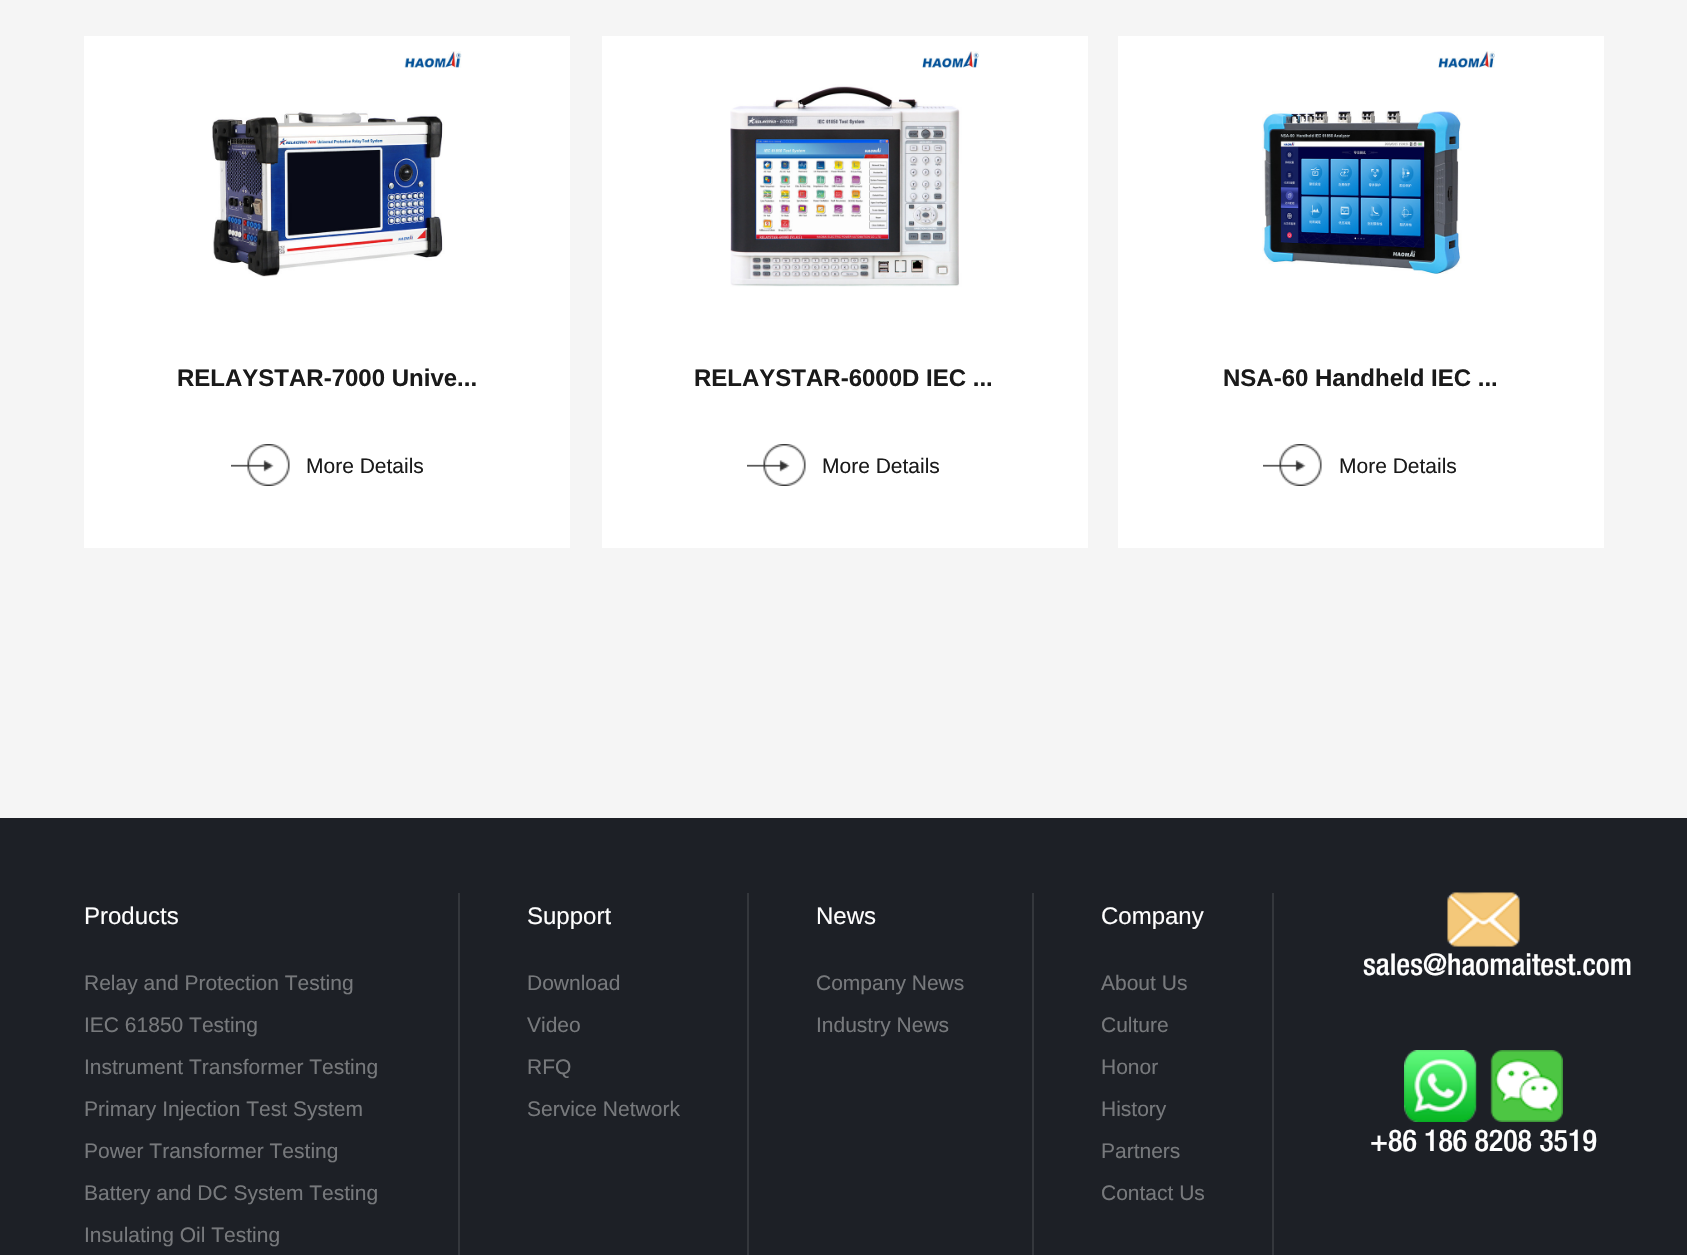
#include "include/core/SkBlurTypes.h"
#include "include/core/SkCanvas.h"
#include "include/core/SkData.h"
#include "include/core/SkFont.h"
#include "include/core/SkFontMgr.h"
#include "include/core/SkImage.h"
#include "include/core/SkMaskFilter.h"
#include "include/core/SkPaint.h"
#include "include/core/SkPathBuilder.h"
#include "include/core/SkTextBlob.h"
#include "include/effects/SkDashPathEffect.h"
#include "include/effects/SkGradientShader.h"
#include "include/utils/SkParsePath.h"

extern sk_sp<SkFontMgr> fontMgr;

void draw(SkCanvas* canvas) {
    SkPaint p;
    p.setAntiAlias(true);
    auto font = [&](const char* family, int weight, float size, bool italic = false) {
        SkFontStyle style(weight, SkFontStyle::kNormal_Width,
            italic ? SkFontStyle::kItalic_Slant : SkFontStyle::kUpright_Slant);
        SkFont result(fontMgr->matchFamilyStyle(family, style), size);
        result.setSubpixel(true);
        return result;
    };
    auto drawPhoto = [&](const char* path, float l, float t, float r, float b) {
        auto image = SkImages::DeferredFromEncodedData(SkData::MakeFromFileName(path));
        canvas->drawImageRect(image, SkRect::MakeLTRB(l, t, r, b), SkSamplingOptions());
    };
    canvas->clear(0xFF1D2026);
    p.setColor(0xFFF5F5F5);
    canvas->drawRect(SkRect::MakeLTRB(0, 0, 1687, 818), p);
    p.setColor(0xFFFFFFFF);
    canvas->drawRect(SkRect::MakeLTRB(84, 36, 570, 548), p);
    drawPhoto("media/1.png", 212, 51, 462, 277);
    auto font1 = font("Liberation Sans", 700, 24);
    p.setColor(0xFF1A1A1A);
    canvas->drawString("RELAYSTAR-7000 Unive...", 177, 386, font1, p);
    drawPhoto("media/2.png", 231, 444, 290, 486);
    auto font2 = font("Liberation Sans", 400, 21);
    canvas->drawString("More Details", 306, 473, font2, p);
    p.setColor(0xFFFFFFFF);
    canvas->drawRect(SkRect::MakeLTRB(602, 36, 1088, 548), p);
    drawPhoto("media/3.png", 730, 51, 979, 287);
    p.setColor(0xFF1A1A1A);
    canvas->drawString("RELAYSTAR-6000D IEC ...", 694, 386, font1, p);
    drawPhoto("media/2.png", 747, 444, 806, 486);
    canvas->drawString("More Details", 822, 473, font2, p);
    p.setColor(0xFFFFFFFF);
    canvas->drawRect(SkRect::MakeLTRB(1118, 36, 1604, 548), p);
    drawPhoto("media/4.png", 1262, 51, 1495, 274);
    p.setColor(0xFF1A1A1A);
    canvas->drawString("NSA-60 Handheld IEC ...", 1223, 386, font1, p);
    drawPhoto("media/2.png", 1263, 444, 1322, 486);
    canvas->drawString("More Details", 1339, 473, font2, p);
    p.setColor(0xFF34373C);
    canvas->drawRect(SkRect::MakeLTRB(458, 893, 460, 1255), p);
    auto font3 = font("Liberation Sans", 400, 24);
    p.setColor(0xFFFEFEFE);
    canvas->drawString("Products", 84, 924, font3, p);
    p.setColor(0xFF77797C);
    {
        const struct { const char* s; float x, y; } items[] = {
            {"Relay and Protection Testing", 84, 990},
            {"IEC 61850 Testing", 84, 1032},
            {"Instrument Transformer Testing", 84, 1074},
            {"Primary Injection Test System", 84, 1116},
            {"Power Transformer Testing", 84, 1158},
            {"Battery and DC System Testing", 84, 1200},
            {"Insulating Oil Testing", 84, 1242},
        };
        for (auto [s, x, y] : items) {
            canvas->drawString(s, x, y, font2, p);
        }
    }
    p.setColor(0xFF34373C);
    canvas->drawRect(SkRect::MakeLTRB(747, 893, 749, 1255), p);
    p.setColor(0xFFFEFEFE);
    canvas->drawString("Support", 527, 924, font3, p);
    p.setColor(0xFF77797C);
    {
        const struct { const char* s; float x, y; } items[] = {
            {"Download", 527, 990},
            {"Video", 527, 1032},
            {"RFQ", 527, 1074},
            {"Service Network", 527, 1116},
        };
        for (auto [s, x, y] : items) {
            canvas->drawString(s, x, y, font2, p);
        }
    }
    p.setColor(0xFF34373C);
    canvas->drawRect(SkRect::MakeLTRB(1032, 893, 1034, 1255), p);
    p.setColor(0xFFFEFEFE);
    canvas->drawString("News", 816, 924, font3, p);
    p.setColor(0xFF77797C);
    canvas->drawString("Company News", 816, 990, font2, p);
    canvas->drawString("Industry News", 816, 1032, font2, p);
    p.setColor(0xFF34373C);
    canvas->drawRect(SkRect::MakeLTRB(1272, 893, 1274, 1255), p);
    p.setColor(0xFFFEFEFE);
    canvas->drawString("Company", 1101, 924, font3, p);
    p.setColor(0xFF77797C);
    {
        const struct { const char* s; float x, y; } items[] = {
            {"About Us", 1101, 990},
            {"Culture", 1101, 1032},
            {"Honor", 1101, 1074},
            {"History", 1101, 1116},
            {"Partners", 1101, 1158},
            {"Contact Us", 1101, 1200},
        };
        for (auto [s, x, y] : items) {
            canvas->drawString(s, x, y, font2, p);
        }
    }
    drawPhoto("media/5.png", 1447, 892, 1520, 947);
    auto font4 = font("Helvetica Neue", 500, 30);
    p.setColor(0xFFFEFEFE);
    canvas->drawString("sales@haomaitest.com", 1363, 975, font4, p);
    drawPhoto("media/6.png", 1404, 1050, 1563, 1122);
    canvas->drawString("+86 186 8208 3519", 1370, 1151, font4, p);
}
